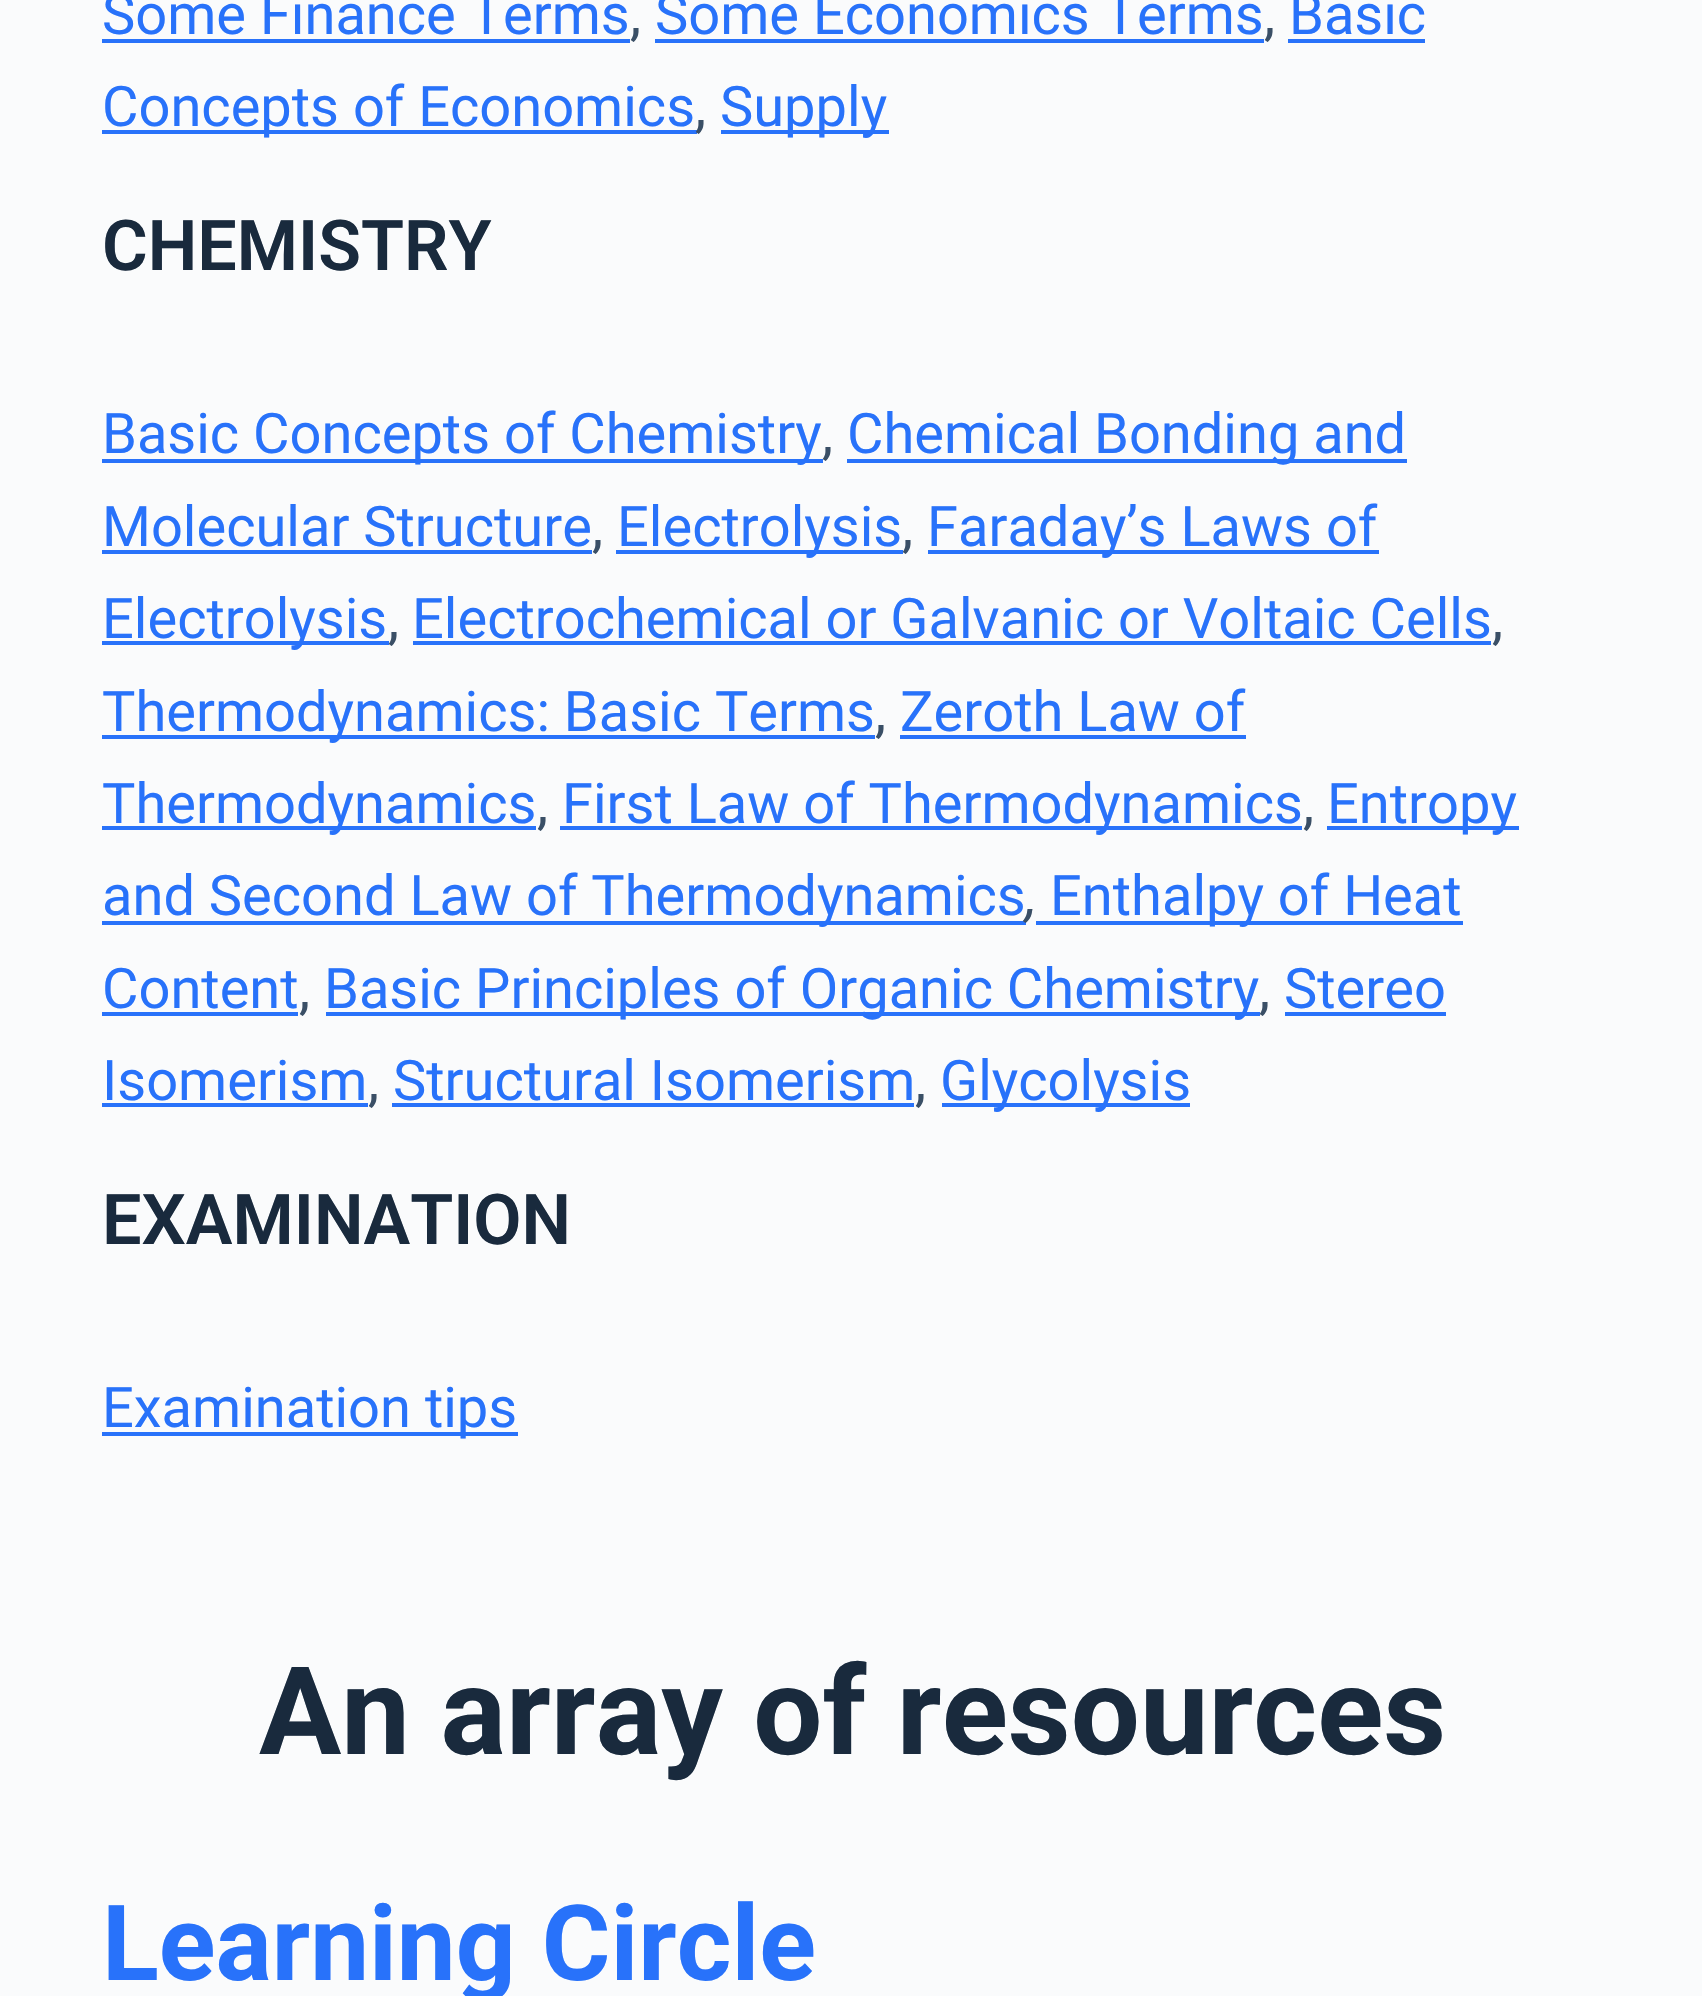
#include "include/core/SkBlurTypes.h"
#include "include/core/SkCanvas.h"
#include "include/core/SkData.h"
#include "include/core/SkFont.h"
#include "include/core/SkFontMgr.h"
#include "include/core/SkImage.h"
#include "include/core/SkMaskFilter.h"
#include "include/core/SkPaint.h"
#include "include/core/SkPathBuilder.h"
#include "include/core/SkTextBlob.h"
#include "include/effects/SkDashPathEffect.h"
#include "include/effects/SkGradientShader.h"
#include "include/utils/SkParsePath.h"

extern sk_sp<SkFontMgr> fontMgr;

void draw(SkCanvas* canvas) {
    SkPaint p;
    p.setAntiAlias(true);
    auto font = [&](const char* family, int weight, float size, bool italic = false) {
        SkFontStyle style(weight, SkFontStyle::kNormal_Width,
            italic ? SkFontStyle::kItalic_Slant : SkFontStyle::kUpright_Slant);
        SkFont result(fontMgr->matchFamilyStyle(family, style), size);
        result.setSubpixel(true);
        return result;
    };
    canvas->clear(0xFFFAFBFC);
    auto font1 = font("Roboto", 400, 56);
    p.setColor(0xFF2872FA);
    canvas->drawString("Some Finance Terms", 102, 34, font1, p);
    canvas->drawRect(SkRect::MakeLTRB(102, 39, 630, 43), p);
    p.setColor(0xFF3A4F66);
    canvas->drawString(",", 630, 34, font1, p);
    p.setColor(0xFF2872FA);
    canvas->drawString("Some Economics Terms", 655, 34, font1, p);
    canvas->drawRect(SkRect::MakeLTRB(655, 39, 1264, 43), p);
    p.setColor(0xFF3A4F66);
    canvas->drawString(",", 1264, 34, font1, p);
    p.setColor(0xFF2872FA);
    canvas->drawString("Basic", 1289, 34, font1, p);
    canvas->drawRect(SkRect::MakeLTRB(1288, 39, 1425, 43), p);
    canvas->drawRect(SkRect::MakeLTRB(102, 130, 697, 134), p);
    canvas->drawString("Concepts of Economics", 102, 126, font1, p);
    p.setColor(0xFF3A4F66);
    canvas->drawString(",", 695, 126, font1, p);
    p.setColor(0xFF2872FA);
    canvas->drawRect(SkRect::MakeLTRB(721, 130, 889, 134), p);
    canvas->drawString("Supply", 720, 126, font1, p);
    auto font2 = font("Roboto", 600, 70);
    p.setColor(0xFF192A3D);
    canvas->drawString("CHEMISTRY", 102, 270, font2, p);
    p.setColor(0xFF2872FA);
    canvas->drawRect(SkRect::MakeLTRB(102, 459, 823, 463), p);
    canvas->drawString("Basic Concepts of Chemistry", 102, 453, font1, p);
    p.setColor(0xFF3A4F66);
    canvas->drawString(",", 822, 453, font1, p);
    p.setColor(0xFF2872FA);
    canvas->drawRect(SkRect::MakeLTRB(847, 459, 1407, 463), p);
    canvas->drawString("Chemical Bonding and", 847, 453, font1, p);
    canvas->drawString("Molecular Structure", 102, 546, font1, p);
    canvas->drawRect(SkRect::MakeLTRB(102, 550, 592, 554), p);
    p.setColor(0xFF3A4F66);
    canvas->drawString(",", 592, 546, font1, p);
    p.setColor(0xFF2872FA);
    canvas->drawRect(SkRect::MakeLTRB(616, 550, 903, 554), p);
    canvas->drawString("Electrolysis", 617, 546, font1, p);
    p.setColor(0xFF3A4F66);
    canvas->drawString(",", 902, 546, font1, p);
    p.setColor(0xFF2872FA);
    canvas->drawRect(SkRect::MakeLTRB(928, 550, 1379, 554), p);
    canvas->drawString("Faraday’s Laws of", 927, 546, font1, p);
    canvas->drawRect(SkRect::MakeLTRB(102, 641, 389, 645), p);
    canvas->drawString("Electrolysis", 102, 638, font1, p);
    p.setColor(0xFF3A4F66);
    canvas->drawString(",", 388, 638, font1, p);
    p.setColor(0xFF2872FA);
    canvas->drawString("Electrochemical or Galvanic or Voltaic Cells", 412, 638, font1, p);
    canvas->drawRect(SkRect::MakeLTRB(413, 641, 1491, 645), p);
    p.setColor(0xFF3A4F66);
    canvas->drawString(",", 1492, 638, font1, p);
    p.setColor(0xFF2872FA);
    canvas->drawRect(SkRect::MakeLTRB(102, 735, 875, 739), p);
    canvas->drawString("Thermodynamics: Basic Terms", 102, 731, font1, p);
    p.setColor(0xFF3A4F66);
    canvas->drawString(",", 875, 731, font1, p);
    p.setColor(0xFF2872FA);
    canvas->drawString("Zeroth Law of", 900, 731, font1, p);
    canvas->drawRect(SkRect::MakeLTRB(900, 735, 1246, 739), p);
    canvas->drawRect(SkRect::MakeLTRB(102, 826, 536, 830), p);
    canvas->drawString("Thermodynamics", 102, 823, font1, p);
    p.setColor(0xFF3A4F66);
    canvas->drawString(",", 537, 823, font1, p);
    p.setColor(0xFF2872FA);
    canvas->drawRect(SkRect::MakeLTRB(560, 826, 1302, 830), p);
    canvas->drawString("First Law of Thermodynamics", 562, 823, font1, p);
    p.setColor(0xFF3A4F66);
    canvas->drawString(",", 1303, 823, font1, p);
    p.setColor(0xFF2872FA);
    canvas->drawRect(SkRect::MakeLTRB(1327, 826, 1519, 830), p);
    canvas->drawString("Entropy", 1327, 823, font1, p);
    canvas->drawRect(SkRect::MakeLTRB(102, 921, 1026, 925), p);
    canvas->drawString("and Second Law of Thermodynamics", 102, 915, font1, p);
    auto font3 = font("Roboto", 400, 56, true);
    p.setColor(0xFF3A4F66);
    canvas->drawString(",", 1026, 915, font3, p);
    p.setColor(0xFF2872FA);
    canvas->drawRect(SkRect::MakeLTRB(1036, 921, 1463, 925), p);
    canvas->drawString("Enthalpy of Heat", 1050, 915, font1, p);
    canvas->drawString("Content", 102, 1008, font1, p);
    canvas->drawRect(SkRect::MakeLTRB(102, 1012, 298, 1016), p);
    p.setColor(0xFF3A4F66);
    canvas->drawString(",", 299, 1008, font1, p);
    p.setColor(0xFF2872FA);
    canvas->drawRect(SkRect::MakeLTRB(326, 1012, 1260, 1016), p);
    canvas->drawString("Basic Principles of Organic Chemistry", 324, 1008, font1, p);
    p.setColor(0xFF3A4F66);
    canvas->drawString(",", 1259, 1008, font1, p);
    p.setColor(0xFF2872FA);
    canvas->drawString("Stereo", 1284, 1008, font1, p);
    canvas->drawRect(SkRect::MakeLTRB(1285, 1012, 1446, 1016), p);
    canvas->drawString("Isomerism", 102, 1100, font1, p);
    canvas->drawRect(SkRect::MakeLTRB(102, 1103, 368, 1107), p);
    p.setColor(0xFF3A4F66);
    canvas->drawString(",", 368, 1100, font1, p);
    p.setColor(0xFF2872FA);
    canvas->drawString("Structural Isomerism", 393, 1100, font1, p);
    canvas->drawRect(SkRect::MakeLTRB(392, 1103, 914, 1107), p);
    p.setColor(0xFF3A4F66);
    canvas->drawString(",", 915, 1100, font1, p);
    p.setColor(0xFF2872FA);
    canvas->drawRect(SkRect::MakeLTRB(942, 1103, 1190, 1107), p);
    canvas->drawString("Glycolysis", 940, 1100, font1, p);
    p.setColor(0xFF192A3D);
    canvas->drawString("EXAMINATION", 102, 1244, font2, p);
    p.setColor(0xFF2872FA);
    canvas->drawRect(SkRect::MakeLTRB(102, 1432, 518, 1436), p);
    canvas->drawString("Examination tips", 102, 1427, font1, p);
    auto font4 = font("Roboto", 700, 122.5f);
    p.setColor(0xFF192A3D);
    canvas->drawString("An array of resources", 259, 1754, font4, p);
    auto font5 = font("Roboto", 700, 105);
    p.setColor(0xFF2872FA);
    canvas->drawString("Learning Circle", 102, 1980, font5, p);
}
